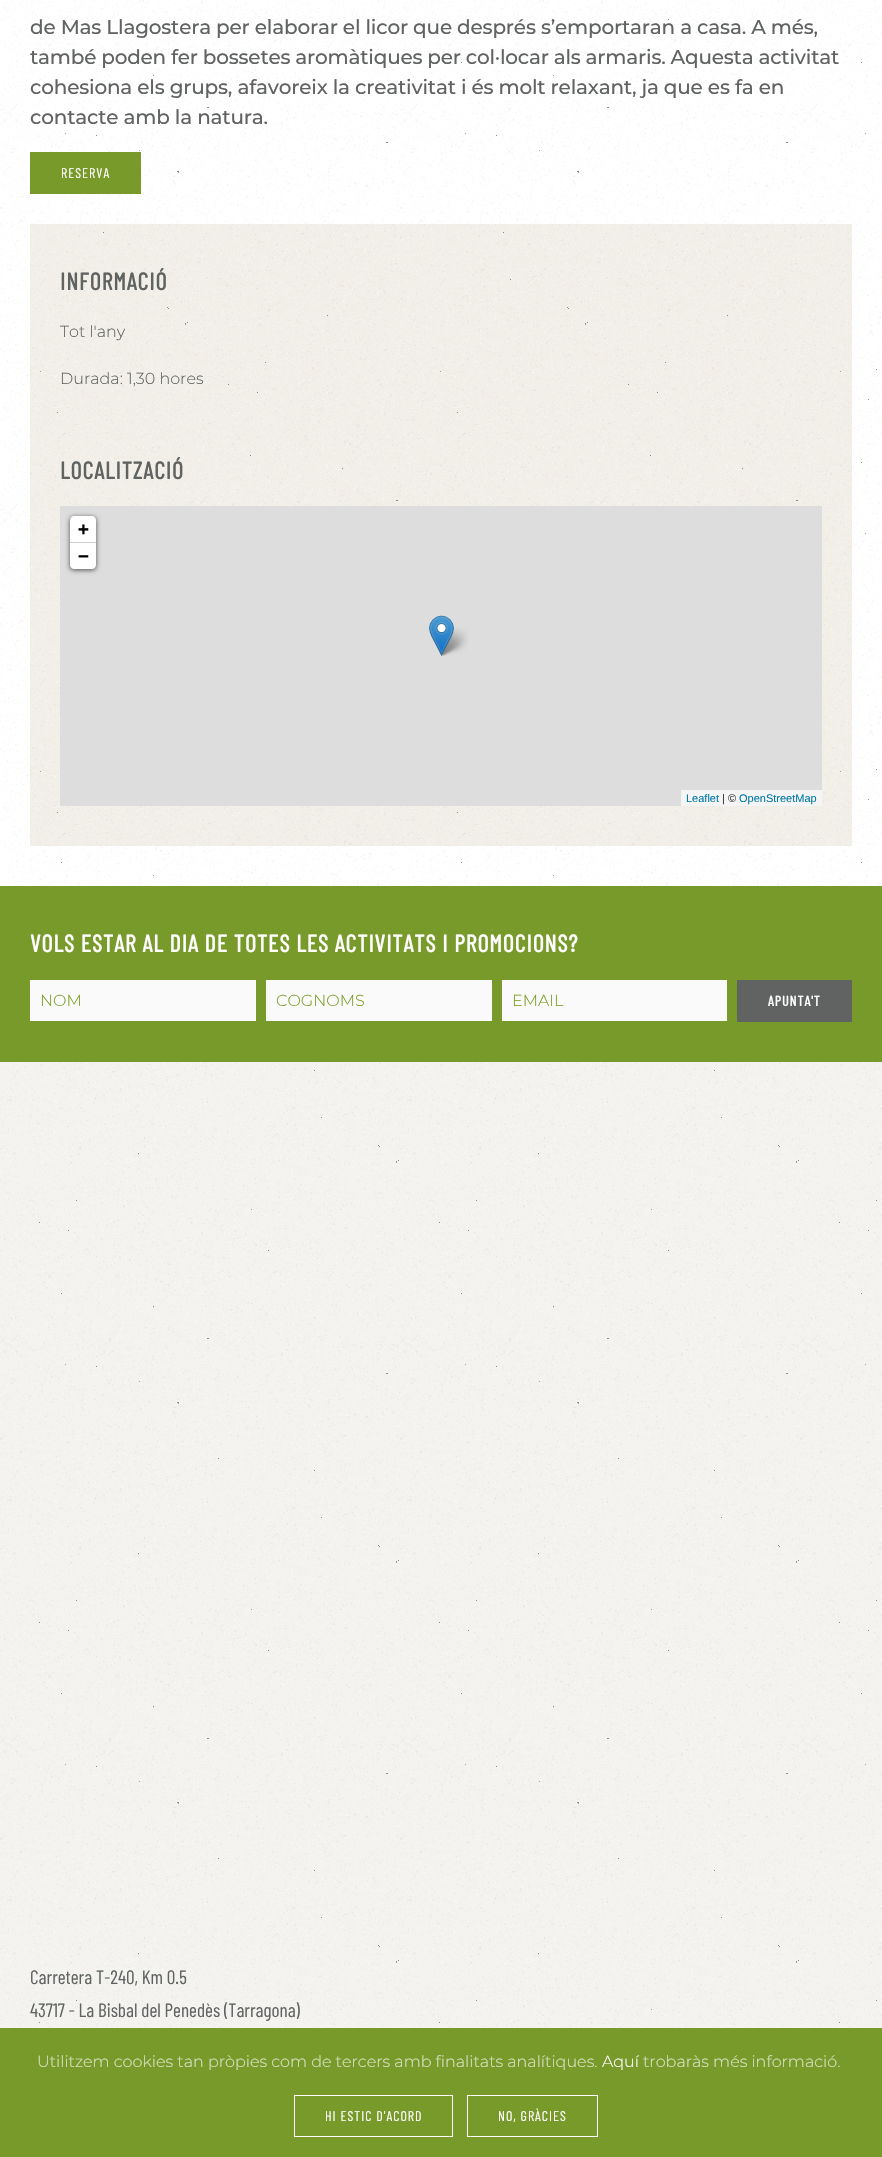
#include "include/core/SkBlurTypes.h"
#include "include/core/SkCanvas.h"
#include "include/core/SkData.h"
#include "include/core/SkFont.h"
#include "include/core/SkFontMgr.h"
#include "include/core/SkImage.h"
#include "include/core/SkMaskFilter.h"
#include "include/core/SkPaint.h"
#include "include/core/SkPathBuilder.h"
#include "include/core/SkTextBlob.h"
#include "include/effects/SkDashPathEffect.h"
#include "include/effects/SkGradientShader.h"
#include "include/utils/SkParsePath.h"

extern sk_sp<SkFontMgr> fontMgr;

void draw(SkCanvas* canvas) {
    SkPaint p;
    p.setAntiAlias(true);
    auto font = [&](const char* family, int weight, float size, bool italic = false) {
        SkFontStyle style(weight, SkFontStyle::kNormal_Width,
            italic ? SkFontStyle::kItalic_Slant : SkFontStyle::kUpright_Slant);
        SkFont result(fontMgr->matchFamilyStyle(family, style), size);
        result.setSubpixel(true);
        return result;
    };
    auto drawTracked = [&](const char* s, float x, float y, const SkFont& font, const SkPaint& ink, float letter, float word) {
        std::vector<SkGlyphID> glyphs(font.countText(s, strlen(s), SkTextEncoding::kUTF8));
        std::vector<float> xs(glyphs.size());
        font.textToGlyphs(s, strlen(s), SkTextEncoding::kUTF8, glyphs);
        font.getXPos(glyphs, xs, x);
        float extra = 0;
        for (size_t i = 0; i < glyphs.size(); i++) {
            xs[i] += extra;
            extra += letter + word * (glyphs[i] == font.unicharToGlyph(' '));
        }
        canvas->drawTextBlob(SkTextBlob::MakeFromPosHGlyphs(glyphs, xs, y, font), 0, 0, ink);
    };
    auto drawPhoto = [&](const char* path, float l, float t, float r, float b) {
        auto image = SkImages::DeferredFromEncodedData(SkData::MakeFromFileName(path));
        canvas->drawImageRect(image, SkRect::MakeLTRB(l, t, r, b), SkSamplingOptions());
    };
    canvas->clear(0xFFFFFFFF);
    drawPhoto("media/1.png", 0, 0, 882, 886);
    auto font1 = font("Montserrat", 500, 20);
    p.setColor(0xFF606361);
    drawTracked("de Mas Llagostera per elaborar el licor que després s’emportaran a casa. A més,", 30, 34, font1, p, -0.2f, 0);
    drawTracked("també poden fer bossetes aromàtiques per col·locar als armaris. Aquesta activitat", 30, 64, font1, p, -0.2f, -0.25f);
    drawTracked("cohesiona els grups, afavoreix la creativitat i és molt relaxant, ja que es fa en", 30, 94, font1, p, -0.2f, 0);
    drawTracked("contacte amb la natura.", 30, 124, font1, p, -0.2f, 0);
    p.setColor(0xFF789A2A);
    canvas->drawRect(SkRect::MakeLTRB(30, 152, 141, 194), p);
    auto font2 = font("Barlow Condensed", 400, 14);
    p.setColor(0xFFFFFFFF);
    drawTracked("RESERVA", 61, 178, font2, p, 1, 0);
    p.setColor(0xFFF2EFE8);
    canvas->drawRect(SkRect::MakeLTRB(30, 224, 852, 846), p);
    drawPhoto("media/2.png", 30, 224, 852, 846);
    auto font3 = font("Barlow Condensed", 700, 24);
    p.setColor(0xFF606361);
    drawTracked("INFORMACIÓ", 60, 290, font3, p, 1, 0);
    auto font4 = font("Montserrat", 300, 16);
    canvas->drawString("Tot l'any", 60, 337, font4, p);
    canvas->drawString("Durada: 1,30 hores", 60, 384, font4, p);
    drawTracked("LOCALITZACIÓ", 60, 479, font3, p, 1, 0);
    p.setColor(0xFFDDDDDD);
    canvas->drawRect(SkRect::MakeLTRB(60, 506, 822, 806), p);
    p.setColor(0xA6000000);
    p.setMaskFilter(SkMaskFilter::MakeBlur(kNormal_SkBlurStyle, 2.5f));
    canvas->drawRoundRect(SkRect::MakeLTRB(70, 517, 96, 570), 4, 4, p);
    p.setMaskFilter(nullptr);
    p.setColor(0xFFFFFFFF);
    canvas->drawPath(SkPathBuilder().moveTo(74, 516).lineTo(92, 516).cubicTo(94, 516, 96, 518, 96, 520).lineTo(96, 543).lineTo(70, 543).lineTo(70, 520).cubicTo(70, 518, 72, 516, 74, 516).close().detach(), p);
    p.setColor(0xFFCCCCCC);
    canvas->drawRect(SkRect::MakeLTRB(70, 542, 96, 543), p);
    auto font5 = font("DejaVu Sans Mono", 700, 18);
    p.setColor(0xFF000000);
    canvas->drawString("+", 78, 535, font5, p);
    p.setColor(0xFFFFFFFF);
    canvas->drawPath(SkPathBuilder().moveTo(70, 543).lineTo(96, 543).lineTo(96, 565).cubicTo(96, 567, 94, 569, 92, 569).lineTo(74, 569).cubicTo(72, 569, 70, 567, 70, 565).close().detach(), p);
    p.setColor(0xFF000000);
    canvas->drawString("−", 78, 562, font5, p);
    p.setColor(0xFFF5F5F5);
    canvas->drawRect(SkRect::MakeLTRB(681, 790, 822, 806), p);
    auto font6 = font("Liberation Sans", 400, 11);
    p.setColor(0xFF0078A8);
    canvas->drawString("Leaflet", 686, 802, font6, p);
    p.setColor(0xFF333333);
    canvas->drawString("| ©", 722, 802, font6, p);
    p.setColor(0xFF0078A8);
    canvas->drawString("OpenStreetMap", 739, 802, font6, p);
    drawPhoto("media/4.png", 439, 628, 468, 656);
    drawPhoto("media/3.png", 429, 615, 454, 656);
    p.setColor(0xFF789A2A);
    canvas->drawRect(SkRect::MakeLTRB(0, 886, 882, 1062), p);
    p.setColor(0xFFFFFFFF);
    drawTracked("VOLS ESTAR AL DIA DE TOTES LES ACTIVITATS I PROMOCIONS?", 30, 952, font3, p, 1, 0);
    p.setColor(0xFFFAFAFA);
    canvas->drawRect(SkRect::MakeLTRB(30, 980, 256, 1021), p);
    p.setColor(0xFF799B23);
    canvas->drawString("NOM", 40, 1006, font4, p);
    p.setColor(0xFFFAFAFA);
    canvas->drawRect(SkRect::MakeLTRB(266, 980, 492, 1021), p);
    p.setColor(0xFF799B23);
    canvas->drawString("COGNOMS", 276, 1006, font4, p);
    p.setColor(0xFFFAFAFA);
    canvas->drawRect(SkRect::MakeLTRB(502, 980, 727, 1021), p);
    p.setColor(0xFF799B23);
    canvas->drawString("EMAIL", 512, 1006, font4, p);
    p.setColor(0xFF606361);
    canvas->drawRect(SkRect::MakeLTRB(737, 980, 852, 1022), p);
    auto font7 = font("Barlow Condensed", 700, 14);
    p.setColor(0xFFFFFFFF);
    drawTracked("APUNTA'T", 768, 1006, font7, p, 1, 0);
    p.setColor(0xFFF4F3F0);
    canvas->drawRect(SkRect::MakeLTRB(0, 1062, 882, 2028), p);
    drawPhoto("media/5.png", 0, 1062, 882, 2028);
    auto font8 = font("Barlow Condensed", 400, 19.25f);
    p.setColor(0xFF606361);
    canvas->drawString("Carretera T-240, Km 0.5", 30, 1984, font8, p);
    canvas->drawString("43717 - La Bisbal del Penedès (Tarragona)", 30, 2017, font8, p);
    p.setColor(0xFF789A2A);
    canvas->drawRect(SkRect::MakeLTRB(0, 2028, 882, 2157), p);
    p.setColor(0xFFD7E1BF);
    canvas->drawString("Utilitzem cookies tan pròpies com de tercers amb finalitats analítiques.", 37, 2067, font4, p);
    p.setColor(0xFFFFFFFF);
    canvas->drawString("Aquí", 602, 2067, font4, p);
    p.setColor(0xFFD7E1BF);
    canvas->drawString("trobaràs més informació.", 643, 2067, font4, p);
    p.setStyle(SkPaint::kStroke_Style);
    p.setStrokeWidth(1);
    p.setColor(0xFFFFFFFF);
    canvas->drawRect(SkRect::MakeLTRB(294.5f, 2095.5f, 452.5f, 2136.5f), p);
    p.setStyle(SkPaint::kFill_Style);
    drawTracked("HI ESTIC D'ACORD", 325, 2121, font2, p, 1, 0);
    p.setStyle(SkPaint::kStroke_Style);
    canvas->drawRect(SkRect::MakeLTRB(467.5f, 2095.5f, 597.5f, 2136.5f), p);
    p.setStyle(SkPaint::kFill_Style);
    drawTracked("NO, GRÀCIES", 498, 2121, font2, p, 1, 0);
}
